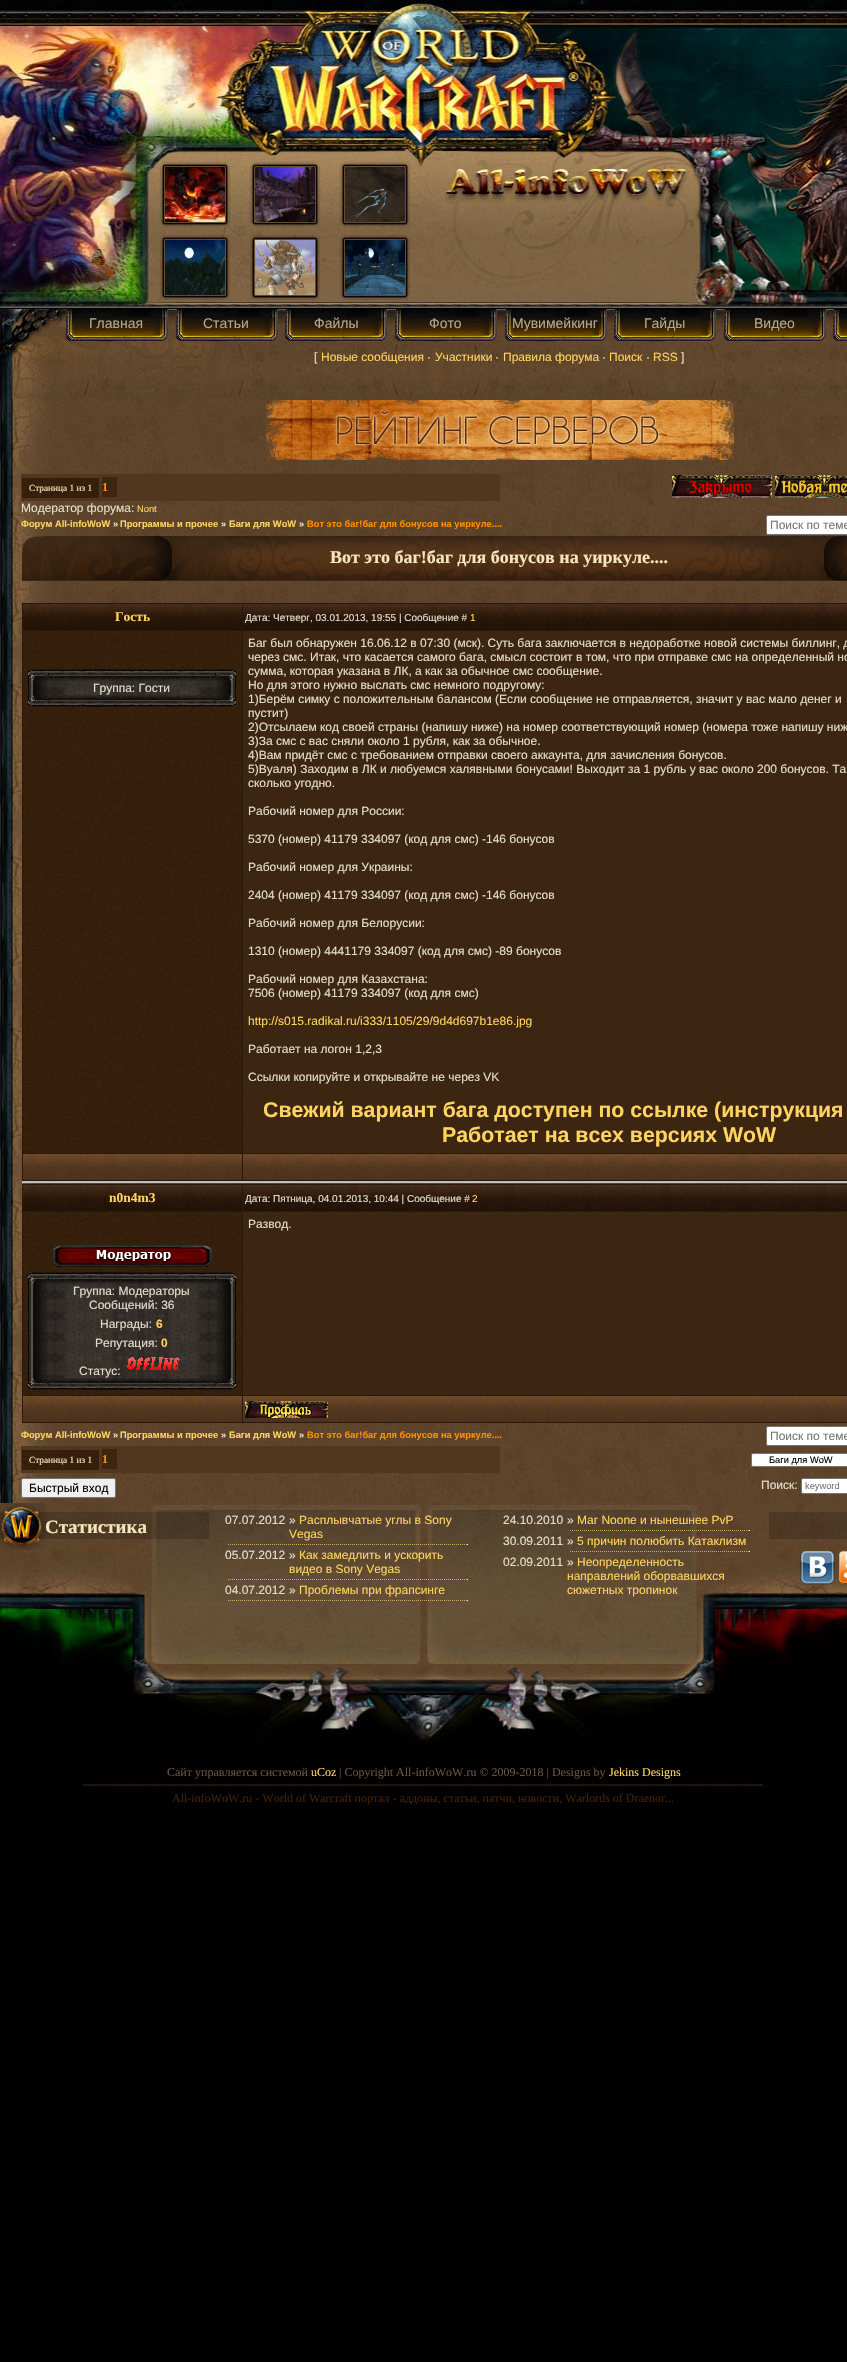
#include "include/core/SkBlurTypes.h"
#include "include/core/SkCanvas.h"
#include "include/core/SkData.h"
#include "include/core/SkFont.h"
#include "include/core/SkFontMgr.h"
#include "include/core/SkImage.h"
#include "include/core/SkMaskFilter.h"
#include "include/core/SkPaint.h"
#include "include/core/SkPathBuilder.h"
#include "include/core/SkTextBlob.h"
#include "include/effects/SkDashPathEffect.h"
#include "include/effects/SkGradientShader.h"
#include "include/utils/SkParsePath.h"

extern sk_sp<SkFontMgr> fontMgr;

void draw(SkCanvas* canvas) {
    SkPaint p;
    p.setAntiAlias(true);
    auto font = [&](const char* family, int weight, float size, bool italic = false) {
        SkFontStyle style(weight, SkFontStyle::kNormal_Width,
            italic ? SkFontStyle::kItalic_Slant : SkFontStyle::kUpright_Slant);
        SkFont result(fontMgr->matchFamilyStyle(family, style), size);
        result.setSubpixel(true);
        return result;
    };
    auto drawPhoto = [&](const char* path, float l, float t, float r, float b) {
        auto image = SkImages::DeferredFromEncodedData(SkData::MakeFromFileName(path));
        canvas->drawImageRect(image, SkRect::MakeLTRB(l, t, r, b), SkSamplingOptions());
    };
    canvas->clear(0xFF000000);
    drawPhoto("media/1.png", 0, 0, 847, 161);
    drawPhoto("media/2.png", 0, 161, 847, 309);
    drawPhoto("media/3.png", 159, 161, 231, 227);
    drawPhoto("media/4.png", 165, 167, 225, 222);
    drawPhoto("media/5.png", 249, 161, 321, 227);
    drawPhoto("media/6.png", 255, 167, 315, 222);
    drawPhoto("media/7.png", 339, 161, 411, 227);
    drawPhoto("media/8.png", 345, 167, 405, 222);
    drawPhoto("media/9.png", 160, 235, 230, 300);
    drawPhoto("media/10.png", 165, 240, 225, 295);
    drawPhoto("media/11.png", 250, 235, 320, 300);
    drawPhoto("media/12.png", 255, 240, 315, 295);
    drawPhoto("media/13.png", 340, 235, 410, 300);
    drawPhoto("media/14.png", 345, 240, 405, 295);
    drawPhoto("media/15.png", 0, 399, 847, 1503);
    drawPhoto("media/16.png", 0, 309, 847, 399);
    drawPhoto("media/17.png", 65, 309, 168, 342);
    auto font1 = font("Liberation Sans", 400, 14);
    p.setColor(0xFFB4A889);
    canvas->drawString("Главная", 89, 328, font1, p);
    drawPhoto("media/18.png", 175, 309, 278, 342);
    canvas->drawString("Статьи", 203, 328, font1, p);
    drawPhoto("media/19.png", 284, 309, 387, 342);
    canvas->drawString("Файлы", 314, 328, font1, p);
    drawPhoto("media/20.png", 394, 309, 497, 342);
    canvas->drawString("Фото", 429, 328, font1, p);
    drawPhoto("media/21.png", 504, 309, 607, 342);
    canvas->drawString("Мувимейкинг", 512, 328, font1, p);
    drawPhoto("media/22.png", 613, 309, 716, 342);
    canvas->drawString("Гайды", 644, 328, font1, p);
    drawPhoto("media/23.png", 723, 309, 826, 342);
    canvas->drawString("Видео", 754, 328, font1, p);
    drawPhoto("media/24.png", 832, 309, 847, 342);
    auto font2 = font("Liberation Sans", 400, 12);
    p.setColor(0xFFE2DCCB);
    canvas->drawString("[", 314, 361, font2, p);
    p.setColor(0xFFFFD360);
    canvas->drawString("Новые сообщения", 321, 361, font2, p);
    p.setColor(0xFFE2DCCB);
    canvas->drawString("·", 427, 361, font2, p);
    p.setColor(0xFFFFD360);
    canvas->drawString("Участники", 435, 361, font2, p);
    p.setColor(0xFFE2DCCB);
    canvas->drawString("·", 495, 361, font2, p);
    p.setColor(0xFFFFD360);
    canvas->drawString("Правила форума", 503, 361, font2, p);
    p.setColor(0xFFE2DCCB);
    canvas->drawString("·", 602, 361, font2, p);
    p.setColor(0xFFFFD360);
    canvas->drawString("Поиск", 609, 361, font2, p);
    p.setColor(0xFFE2DCCB);
    canvas->drawString("·", 646, 361, font2, p);
    p.setColor(0xFFFFD360);
    canvas->drawString("RSS", 653, 361, font2, p);
    p.setColor(0xFFE2DCCB);
    canvas->drawString("]", 681, 361, font2, p);
    drawPhoto("media/25.png", 266, 400, 734, 460);
    p.setColor(0xFF51371F);
    canvas->drawRect(SkRect::MakeLTRB(21, 474, 500, 501), p);
    drawPhoto("media/26.png", 22, 478, 99, 498);
    auto font3 = font("Liberation Serif", 400, 9.3f);
    p.setColor(0xFFF7E6BA);
    canvas->drawString("Страница 1 из 1", 29, 491, font3, p);
    p.setColor(0xFF3C2511);
    canvas->drawRect(SkRect::MakeLTRB(102, 477, 117, 497), p);
    auto font4 = font("Liberation Serif", 700, 12);
    p.setColor(0xFFFF9000);
    canvas->drawString("1", 102, 491, font4, p);
    drawPhoto("media/27.png", 672, 475, 772, 498);
    drawPhoto("media/28.png", 775, 475, 847, 498);
    p.setColor(0xFFE2DCCB);
    canvas->drawString("Модератор форума:", 21, 512, font2, p);
    auto font5 = font("Liberation Sans", 400, 9.3f);
    p.setColor(0xFFFFD360);
    canvas->drawString("Nont", 137, 512, font5, p);
    auto font6 = font("Liberation Sans", 700, 9.3f);
    canvas->drawString("Форум All-infoWoW", 21, 527, font6, p);
    p.setColor(0xFFE2DCCB);
    canvas->drawString("»", 113, 527, font6, p);
    p.setColor(0xFFFFD360);
    canvas->drawString("Программы и прочее", 120, 527, font6, p);
    p.setColor(0xFFE2DCCB);
    canvas->drawString("»", 221, 527, font6, p);
    p.setColor(0xFFFFD360);
    canvas->drawString("Баги для WoW", 229, 527, font6, p);
    p.setColor(0xFFE2DCCB);
    canvas->drawString("»", 299, 527, font6, p);
    p.setColor(0xFFFF9000);
    canvas->drawString("Вот это баг!баг для бонусов на уиркуле....", 307, 527, font6, p);
    p.setColor(0xFFFFFFFF);
    canvas->drawRoundRect(SkRect::MakeLTRB(766.5f, 515.5f, 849.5f, 534.5f), 1.5f, 1.5f, p);
    p.setStyle(SkPaint::kStroke_Style);
    p.setStrokeWidth(1);
    p.setColor(0xFF767676);
    canvas->drawRoundRect(SkRect::MakeLTRB(766.5f, 515.5f, 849.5f, 534.5f), 1.5f, 1.5f, p);
    p.setStyle(SkPaint::kFill_Style);
    p.setColor(0xFF757575);
    canvas->drawString("Поиск по теме", 770, 529, font2, p);
    drawPhoto("media/29.png", 22, 536, 847, 581);
    auto font7 = font("Liberation Serif", 700, 18);
    p.setColor(0xFFF7E6BA);
    canvas->drawString("Вот это баг!баг для бонусов на уиркуле....", 330, 563, font7, p);
    p.setColor(0xFFC0C0C0);
    canvas->drawRect(SkRect::MakeLTRB(22, 1181, 847, 1183), p);
    p.setColor(0xFF281810);
    canvas->drawRect(SkRect::MakeLTRB(22, 603, 847, 1181), p);
    drawPhoto("media/30.png", 23, 604, 242, 630);
    auto font8 = font("Liberation Serif", 700, 13.5f);
    p.setColor(0xFFFFD360);
    canvas->drawString("Гость", 115, 621, font8, p);
    drawPhoto("media/31.png", 243, 604, 847, 630);
    auto font9 = font("Liberation Sans", 400, 10);
    p.setColor(0xFFE2DCCB);
    canvas->drawString("Дата: Четверг, 03.01.2013, 19:55 | Сообщение #", 245, 621, font9, p);
    p.setColor(0xFFFFD360);
    canvas->drawString("1", 470, 621, font9, p);
    drawPhoto("media/32.png", 23, 631, 242, 1153);
    drawPhoto("media/33.png", 28, 669, 236, 681);
    drawPhoto("media/34.png", 28, 681, 236, 695);
    p.setColor(0xFFE2DCCB);
    canvas->drawString("Группа: Гости", 93, 692, font2, p);
    drawPhoto("media/35.png", 28, 695, 236, 707);
    p.setColor(0xFF3C2511);
    canvas->drawRect(SkRect::MakeLTRB(243, 631, 847, 1153), p);
    p.setColor(0xFFE2DCCB);
    {
        const struct { const char* s; float x, y; } items[] = {
            {"Баг был обнаружен 16.06.12 в 07:30 (мск). Суть бага заключается в недоработке новой системы биллинг, д", 248, 647},
            {"через смс. Итак, что касается самого бага, смысл состоит в том, что при отправке смс на определенный но", 248, 661},
            {"сумма, которая указана в ЛК, а как за обычное смс сообщение.", 248, 675},
            {"Но для этого нужно выслать смс немного подругому:", 248, 689},
            {"1)Берём симку с положительным балансом (Если сообщение не отправляется, значит у вас мало денег и", 248, 703},
            {"пустит)", 248, 717},
            {"2)Отсылаем код своей страны (напишу ниже) на номер соответствующий номер (номера тоже напишу ниж", 248, 731},
            {"3)За смс с вас сняли около 1 рубля, как за обычное.", 248, 745},
            {"4)Вам придёт смс с требованием отправки своего аккаунта, для зачисления бонусов.", 248, 759},
            {"5)Вуаля) Заходим в ЛК и любуемся халявными бонусами! Выходит за 1 рубль у вас около 200 бонусов. Та", 248, 773},
            {"сколько угодно.", 248, 787},
            {"Рабочий номер для России:", 248, 815},
            {"5370 (номер) 41179 334097 (код для смс) -146 бонусов", 248, 843},
            {"Рабочий номер для Украины:", 248, 871},
            {"2404 (номер) 41179 334097 (код для смс) -146 бонусов", 248, 899},
            {"Рабочий номер для Белорусии:", 248, 927},
            {"1310 (номер) 4441179 334097 (код для смс) -89 бонусов", 248, 955},
            {"Рабочий номер для Казахстана:", 248, 983},
            {"7506 (номер) 41179 334097 (код для смс)", 248, 997},
        };
        for (auto [s, x, y] : items) {
            canvas->drawString(s, x, y, font2, p);
        }
    }
    p.setColor(0xFFFFD360);
    canvas->drawString("http://s015.radikal.ru/i333/1105/29/9d4d697b1e86.jpg", 248, 1025, font2, p);
    p.setColor(0xFFE2DCCB);
    canvas->drawString("Работает на логон 1,2,3", 248, 1053, font2, p);
    canvas->drawString("Ссылки копируйте и открывайте не через VK", 248, 1081, font2, p);
    auto font10 = font("Liberation Sans", 700, 21.3f);
    p.setColor(0xFFFFD360);
    canvas->drawString("Свежий вариант бага доступен по ссылке (инструкция", 263, 1117, font10, p);
    canvas->drawString("Работает на всех версиях WoW", 442, 1142, font10, p);
    drawPhoto("media/36.png", 23, 1154, 242, 1180);
    drawPhoto("media/37.png", 243, 1154, 847, 1180);
    p.setColor(0xFF281810);
    canvas->drawRect(SkRect::MakeLTRB(22, 1184, 847, 1423), p);
    drawPhoto("media/30.png", 23, 1185, 242, 1211);
    p.setColor(0xFFFFD360);
    canvas->drawString("n0n4m3", 109, 1202, font8, p);
    drawPhoto("media/31.png", 243, 1185, 847, 1211);
    p.setColor(0xFFE2DCCB);
    canvas->drawString("Дата: Пятница, 04.01.2013, 10:44 | Сообщение #", 245, 1202, font9, p);
    p.setColor(0xFFFFD360);
    canvas->drawString("2", 472, 1202, font9, p);
    p.setColor(0xFF3C2511);
    canvas->drawRect(SkRect::MakeLTRB(243, 1212, 847, 1395), p);
    p.setColor(0xFFE2DCCB);
    canvas->drawString("Развод.", 248, 1228, font2, p);
    drawPhoto("media/38.png", 23, 1212, 242, 1395);
    drawPhoto("media/39.png", 53, 1245, 212, 1267);
    drawPhoto("media/33.png", 28, 1272, 236, 1284);
    drawPhoto("media/40.png", 28, 1284, 236, 1378);
    {
        const struct { const char* s; float x, y; } items[] = {
            {"Группа: Модераторы", 73, 1295},
            {"Сообщений: 36", 89, 1309},
            {"Награды:", 100, 1328},
        };
        for (auto [s, x, y] : items) {
            canvas->drawString(s, x, y, font2, p);
        }
    }
    auto font11 = font("Liberation Sans", 700, 12);
    p.setColor(0xFFFFD360);
    canvas->drawString("6", 156, 1328, font11, p);
    p.setColor(0xFFE2DCCB);
    canvas->drawString("Репутация:", 95, 1347, font2, p);
    p.setColor(0xFFFFD360);
    canvas->drawString("0", 161, 1347, font11, p);
    drawPhoto("media/41.png", 127, 1357, 180, 1370);
    p.setColor(0xFFE2DCCB);
    canvas->drawString("Статус:", 79, 1375, font2, p);
    drawPhoto("media/35.png", 28, 1378, 236, 1390);
    drawPhoto("media/36.png", 23, 1396, 242, 1422);
    drawPhoto("media/37.png", 243, 1396, 847, 1422);
    drawPhoto("media/42.png", 245, 1401, 328, 1418);
    p.setColor(0xFFFFD360);
    canvas->drawString("Форум All-infoWoW", 21, 1438, font6, p);
    p.setColor(0xFFE2DCCB);
    canvas->drawString("»", 113, 1438, font6, p);
    p.setColor(0xFFFFD360);
    canvas->drawString("Программы и прочее", 120, 1438, font6, p);
    p.setColor(0xFFE2DCCB);
    canvas->drawString("»", 221, 1438, font6, p);
    p.setColor(0xFFFFD360);
    canvas->drawString("Баги для WoW", 229, 1438, font6, p);
    p.setColor(0xFFE2DCCB);
    canvas->drawString("»", 299, 1438, font6, p);
    p.setColor(0xFFFF9000);
    canvas->drawString("Вот это баг!баг для бонусов на уиркуле....", 307, 1438, font6, p);
    p.setColor(0xFFFFFFFF);
    canvas->drawRoundRect(SkRect::MakeLTRB(766.5f, 1426.5f, 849.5f, 1445.5f), 1.5f, 1.5f, p);
    p.setStyle(SkPaint::kStroke_Style);
    p.setColor(0xFF767676);
    canvas->drawRoundRect(SkRect::MakeLTRB(766.5f, 1426.5f, 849.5f, 1445.5f), 1.5f, 1.5f, p);
    p.setStyle(SkPaint::kFill_Style);
    p.setColor(0xFF757575);
    canvas->drawString("Поиск по теме", 770, 1440, font2, p);
    p.setColor(0xFF51371F);
    canvas->drawRect(SkRect::MakeLTRB(21, 1446, 500, 1473), p);
    drawPhoto("media/26.png", 22, 1450, 99, 1470);
    p.setColor(0xFFF7E6BA);
    canvas->drawString("Страница 1 из 1", 29, 1463, font3, p);
    p.setColor(0xFF3C2511);
    canvas->drawRect(SkRect::MakeLTRB(102, 1449, 117, 1469), p);
    p.setColor(0xFFFF9000);
    canvas->drawString("1", 102, 1463, font4, p);
    p.setColor(0xFFFFFFFF);
    canvas->drawRoundRect(SkRect::MakeLTRB(751.5f, 1453.5f, 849.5f, 1466.5f), 1.5f, 1.5f, p);
    p.setStyle(SkPaint::kStroke_Style);
    p.setColor(0xFF767676);
    canvas->drawRoundRect(SkRect::MakeLTRB(751.5f, 1453.5f, 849.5f, 1466.5f), 1.5f, 1.5f, p);
    p.setStyle(SkPaint::kFill_Style);
    p.setColor(0xFF000000);
    canvas->drawString("Баги для WoW", 769, 1463, font5, p);
    p.setColor(0xFFEFEFEF);
    canvas->drawRoundRect(SkRect::MakeLTRB(21.5f, 1478.5f, 115.5f, 1497.5f), 1.5f, 1.5f, p);
    p.setStyle(SkPaint::kStroke_Style);
    p.setColor(0xFF767676);
    canvas->drawRoundRect(SkRect::MakeLTRB(21.5f, 1478.5f, 115.5f, 1497.5f), 1.5f, 1.5f, p);
    p.setStyle(SkPaint::kFill_Style);
    p.setColor(0xFF000000);
    canvas->drawString("Быстрый вход", 29, 1492, font2, p);
    p.setColor(0xFFE2DCCB);
    canvas->drawString("Поиск:", 761, 1489, font2, p);
    p.setColor(0xFFFFFFFF);
    canvas->drawRoundRect(SkRect::MakeLTRB(801.5f, 1478.5f, 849.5f, 1493.5f), 1.5f, 1.5f, p);
    p.setStyle(SkPaint::kStroke_Style);
    p.setColor(0xFF767676);
    canvas->drawRoundRect(SkRect::MakeLTRB(801.5f, 1478.5f, 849.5f, 1493.5f), 1.5f, 1.5f, p);
    p.setStyle(SkPaint::kFill_Style);
    p.setColor(0xFF757575);
    canvas->drawString("keyword", 805, 1489, font5, p);
    drawPhoto("media/43.png", 0, 1503, 847, 1743);
    drawPhoto("media/44.png", 0, 1503, 209, 1550);
    auto font12 = font("Liberation Serif", 700, 19);
    p.setColor(0xFFF7E6BA);
    canvas->drawString("Статистика", 45, 1533, font12, p);
    p.setColor(0xFFE2DCCB);
    canvas->drawString("07.07.2012", 225, 1524, font2, p);
    canvas->drawString("»", 289, 1524, font2, p);
    p.setColor(0xFFFFD360);
    canvas->drawString("Расплывчатые углы в Sony", 299, 1524, font2, p);
    canvas->drawString("Vegas", 289, 1538, font2, p);
    p.setStyle(SkPaint::kStroke_Style);
    p.setColor(0xFFD8A65E);
    p.setPathEffect(SkDashPathEffect::Make({{1, 1}}, 0));
    canvas->drawPath(SkPathBuilder().moveTo(228, 1544.5f).lineTo(468, 1544.5f).detach(), p);
    p.setPathEffect(nullptr);
    p.setStyle(SkPaint::kFill_Style);
    p.setColor(0xFFEEEEEE);
    canvas->drawRect(SkRect::MakeLTRB(467, 1544, 468, 1545), p);
    p.setColor(0xFF9F9F9F);
    canvas->drawRect(SkRect::MakeLTRB(228, 1544, 229, 1545), p);
    p.setColor(0xFFE2DCCB);
    canvas->drawString("05.07.2012", 225, 1559, font2, p);
    canvas->drawString("»", 289, 1559, font2, p);
    p.setColor(0xFFFFD360);
    canvas->drawString("Как замедлить и ускорить", 299, 1559, font2, p);
    canvas->drawString("видео в Sony Vegas", 289, 1573, font2, p);
    p.setStyle(SkPaint::kStroke_Style);
    p.setColor(0xFFD8A65E);
    p.setPathEffect(SkDashPathEffect::Make({{1, 1}}, 0));
    canvas->drawPath(SkPathBuilder().moveTo(228, 1579.5f).lineTo(468, 1579.5f).detach(), p);
    p.setPathEffect(nullptr);
    p.setStyle(SkPaint::kFill_Style);
    p.setColor(0xFFEEEEEE);
    canvas->drawRect(SkRect::MakeLTRB(467, 1579, 468, 1580), p);
    p.setColor(0xFF9F9F9F);
    canvas->drawRect(SkRect::MakeLTRB(228, 1579, 229, 1580), p);
    p.setColor(0xFFE2DCCB);
    canvas->drawString("04.07.2012", 225, 1594, font2, p);
    canvas->drawString("»", 289, 1594, font2, p);
    p.setColor(0xFFFFD360);
    canvas->drawString("Проблемы при фрапсинге", 299, 1594, font2, p);
    p.setStyle(SkPaint::kStroke_Style);
    p.setColor(0xFFD8A65E);
    p.setPathEffect(SkDashPathEffect::Make({{1, 1}}, 0));
    canvas->drawPath(SkPathBuilder().moveTo(228, 1600.5f).lineTo(468, 1600.5f).detach(), p);
    p.setPathEffect(nullptr);
    p.setStyle(SkPaint::kFill_Style);
    p.setColor(0xFFEEEEEE);
    canvas->drawRect(SkRect::MakeLTRB(467, 1600, 468, 1601), p);
    p.setColor(0xFF9F9F9F);
    canvas->drawRect(SkRect::MakeLTRB(228, 1600, 229, 1601), p);
    p.setColor(0xFFE2DCCB);
    canvas->drawString("24.10.2010", 503, 1524, font2, p);
    canvas->drawString("»", 567, 1524, font2, p);
    p.setColor(0xFFFFD360);
    canvas->drawString("Маг Noone и нынешнее PvP", 577, 1524, font2, p);
    p.setStyle(SkPaint::kStroke_Style);
    p.setColor(0xFFD8A65E);
    p.setPathEffect(SkDashPathEffect::Make({{1, 1}}, 0));
    canvas->drawPath(SkPathBuilder().moveTo(570, 1530.5f).lineTo(750, 1530.5f).detach(), p);
    p.setPathEffect(nullptr);
    p.setStyle(SkPaint::kFill_Style);
    p.setColor(0xFFEEEEEE);
    canvas->drawRect(SkRect::MakeLTRB(749, 1530, 750, 1531), p);
    p.setColor(0xFF9F9F9F);
    canvas->drawRect(SkRect::MakeLTRB(570, 1530, 571, 1531), p);
    p.setColor(0xFFE2DCCB);
    canvas->drawString("30.09.2011", 503, 1545, font2, p);
    canvas->drawString("»", 567, 1545, font2, p);
    p.setColor(0xFFFFD360);
    canvas->drawString("5 причин полюбить Катаклизм", 577, 1545, font2, p);
    p.setStyle(SkPaint::kStroke_Style);
    p.setColor(0xFFD8A65E);
    p.setPathEffect(SkDashPathEffect::Make({{1, 1}}, 0));
    canvas->drawPath(SkPathBuilder().moveTo(570, 1551.5f).lineTo(750, 1551.5f).detach(), p);
    p.setPathEffect(nullptr);
    p.setStyle(SkPaint::kFill_Style);
    p.setColor(0xFFEEEEEE);
    canvas->drawRect(SkRect::MakeLTRB(749, 1551, 750, 1552), p);
    p.setColor(0xFF9F9F9F);
    canvas->drawRect(SkRect::MakeLTRB(570, 1551, 571, 1552), p);
    p.setColor(0xFFE2DCCB);
    canvas->drawString("02.09.2011", 503, 1566, font2, p);
    canvas->drawString("»", 567, 1566, font2, p);
    p.setColor(0xFFFFD360);
    {
        const struct { const char* s; float x, y; } items[] = {
            {"Неопределенность", 577, 1566},
            {"направлений оборвавшихся", 567, 1580},
            {"сюжетных тропинок", 567, 1594},
        };
        for (auto [s, x, y] : items) {
            canvas->drawString(s, x, y, font2, p);
        }
    }
    p.setColor(0x2E000000);
    canvas->drawRect(SkRect::MakeLTRB(769, 1512, 847, 1539), p);
    drawPhoto("media/45.png", 800, 1551, 835, 1585);
    drawPhoto("media/46.png", 839, 1551, 847, 1583);
    auto font13 = font("Liberation Serif", 400, 12);
    p.setColor(0xFF685340);
    canvas->drawString("Сайт управляется системой", 167, 1776, font13, p);
    p.setColor(0xFFFFD360);
    canvas->drawString("uCoz", 311, 1776, font13, p);
    p.setColor(0xFF685340);
    canvas->drawString("| Copyright All-infoWoW.ru © 2009-2018 | Designs by", 339, 1776, font13, p);
    p.setColor(0xFFFFD360);
    canvas->drawString("Jekins Designs", 609, 1776, font13, p);
    drawPhoto("media/47.png", 80, 1780, 767, 1788);
    p.setColor(0xFF442104);
    canvas->drawString("All-infoWoW.ru - World of Warcraft портал - аддоны, статьи, патчи, новости, Warlords of Draenor...", 172, 1802, font13, p);
}
